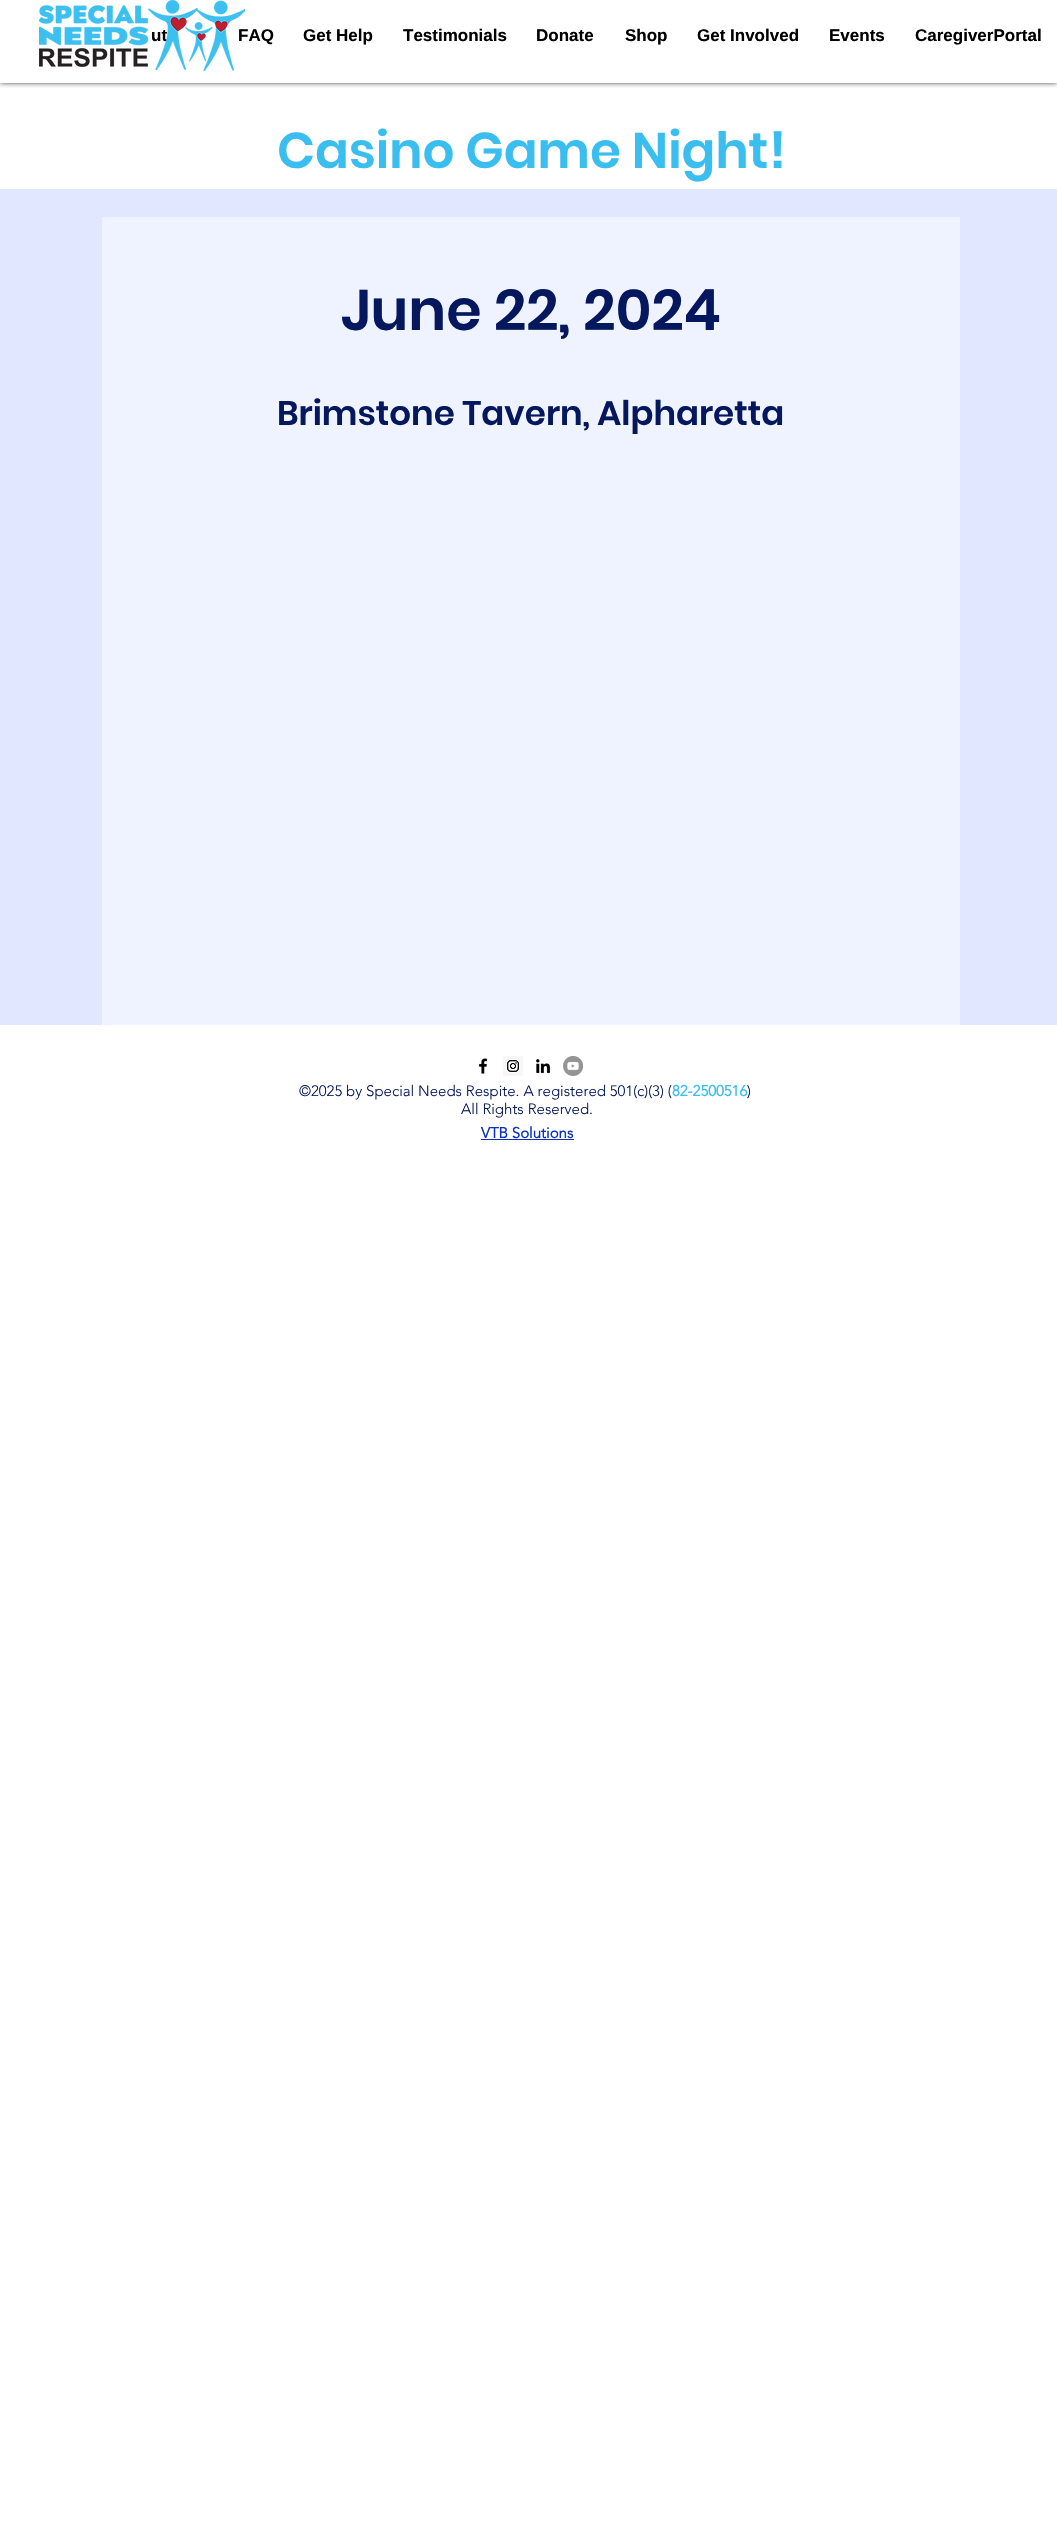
#include "include/core/SkBlurTypes.h"
#include "include/core/SkCanvas.h"
#include "include/core/SkData.h"
#include "include/core/SkFont.h"
#include "include/core/SkFontMgr.h"
#include "include/core/SkImage.h"
#include "include/core/SkMaskFilter.h"
#include "include/core/SkPaint.h"
#include "include/core/SkPathBuilder.h"
#include "include/core/SkTextBlob.h"
#include "include/effects/SkDashPathEffect.h"
#include "include/effects/SkGradientShader.h"
#include "include/utils/SkParsePath.h"

extern sk_sp<SkFontMgr> fontMgr;

void draw(SkCanvas* canvas) {
    SkPaint p;
    p.setAntiAlias(true);
    auto font = [&](const char* family, int weight, float size, bool italic = false) {
        SkFontStyle style(weight, SkFontStyle::kNormal_Width,
            italic ? SkFontStyle::kItalic_Slant : SkFontStyle::kUpright_Slant);
        SkFont result(fontMgr->matchFamilyStyle(family, style), size);
        result.setSubpixel(true);
        return result;
    };
    auto drawPhoto = [&](const char* path, float l, float t, float r, float b) {
        auto image = SkImages::DeferredFromEncodedData(SkData::MakeFromFileName(path));
        canvas->drawImageRect(image, SkRect::MakeLTRB(l, t, r, b), SkSamplingOptions());
    };
    canvas->clear(0xFFFFFFFF);
    canvas->save();
    canvas->clipRect(SkRect::MakeLTRB(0, 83, 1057, 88));
    p.setColor(0xB3000000);
    p.setMaskFilter(SkMaskFilter::MakeBlur(kNormal_SkBlurStyle, 2.5f));
    canvas->drawRect(SkRect::MakeLTRB(0, 0, 1057, 83), p);
    p.setMaskFilter(nullptr);
    canvas->restore();
    auto font1 = font("Liberation Sans", 700, 17);
    p.setColor(0xFF000000);
    canvas->drawString("ut", 151, 41, font1, p);
    canvas->drawString("FAQ", 238, 41, font1, p);
    drawPhoto("media/1.png", 39, 0, 245, 71);
    {
        const struct { const char* s; float x, y; } items[] = {
            {"Get Help", 303, 41},
            {"Testimonials", 403, 41},
            {"Donate", 536, 41},
            {"Shop", 625, 41},
            {"Get Involved", 697, 41},
            {"Events", 829, 41},
            {"CaregiverPortal", 915, 41},
        };
        for (auto [s, x, y] : items) {
            canvas->drawString(s, x, y, font1, p);
        }
    }
    auto font2 = font("Poppins", 600, 50);
    p.setColor(0xFF39BEEF);
    canvas->drawString("Casino Game Night!", 277, 168, font2, p);
    p.setColor(0xFFE0E7FE);
    canvas->drawRect(SkRect::MakeLTRB(0, 189, 1057, 1025), p);
    p.setColor(0xFFEFF2FF);
    canvas->drawRect(SkRect::MakeLTRB(102, 217, 960, 1025), p);
    auto font3 = font("Poppins", 600, 57);
    p.setColor(0xFF05185E);
    canvas->drawString("June 22, 2024", 341, 330, font3, p);
    auto font4 = font("Poppins", 600, 34);
    canvas->drawString("Brimstone Tavern, Alpharetta", 277, 425, font4, p);
    drawPhoto("media/2.png", 479, 1058, 488, 1074);
    drawPhoto("media/3.png", 503, 1056, 523, 1076);
    drawPhoto("media/4.png", 536, 1059, 551, 1074);
    drawPhoto("media/5.png", 563, 1056, 583, 1076);
    auto font5 = font("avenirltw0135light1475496", 300, 15);
    canvas->drawString("©2025 by Special Needs Respite. A registered 501(c)(3) (", 299, 1096, font5, p);
    auto font6 = font("avenirltw0135light1475496", 700, 15);
    p.setColor(0xFF39BEEF);
    canvas->drawString("82-2500516", 672, 1096, font6, p);
    p.setColor(0xFF05185E);
    canvas->drawString(")", 747, 1096, font5, p);
    canvas->drawString("All Rights Reserved.", 461, 1114, font5, p);
    p.setColor(0xFF0A31C0);
    canvas->drawString("VTB Solutions", 481, 1138, font6, p);
    canvas->drawRect(SkRect::MakeLTRB(481, 1139, 574, 1140), p);
}
